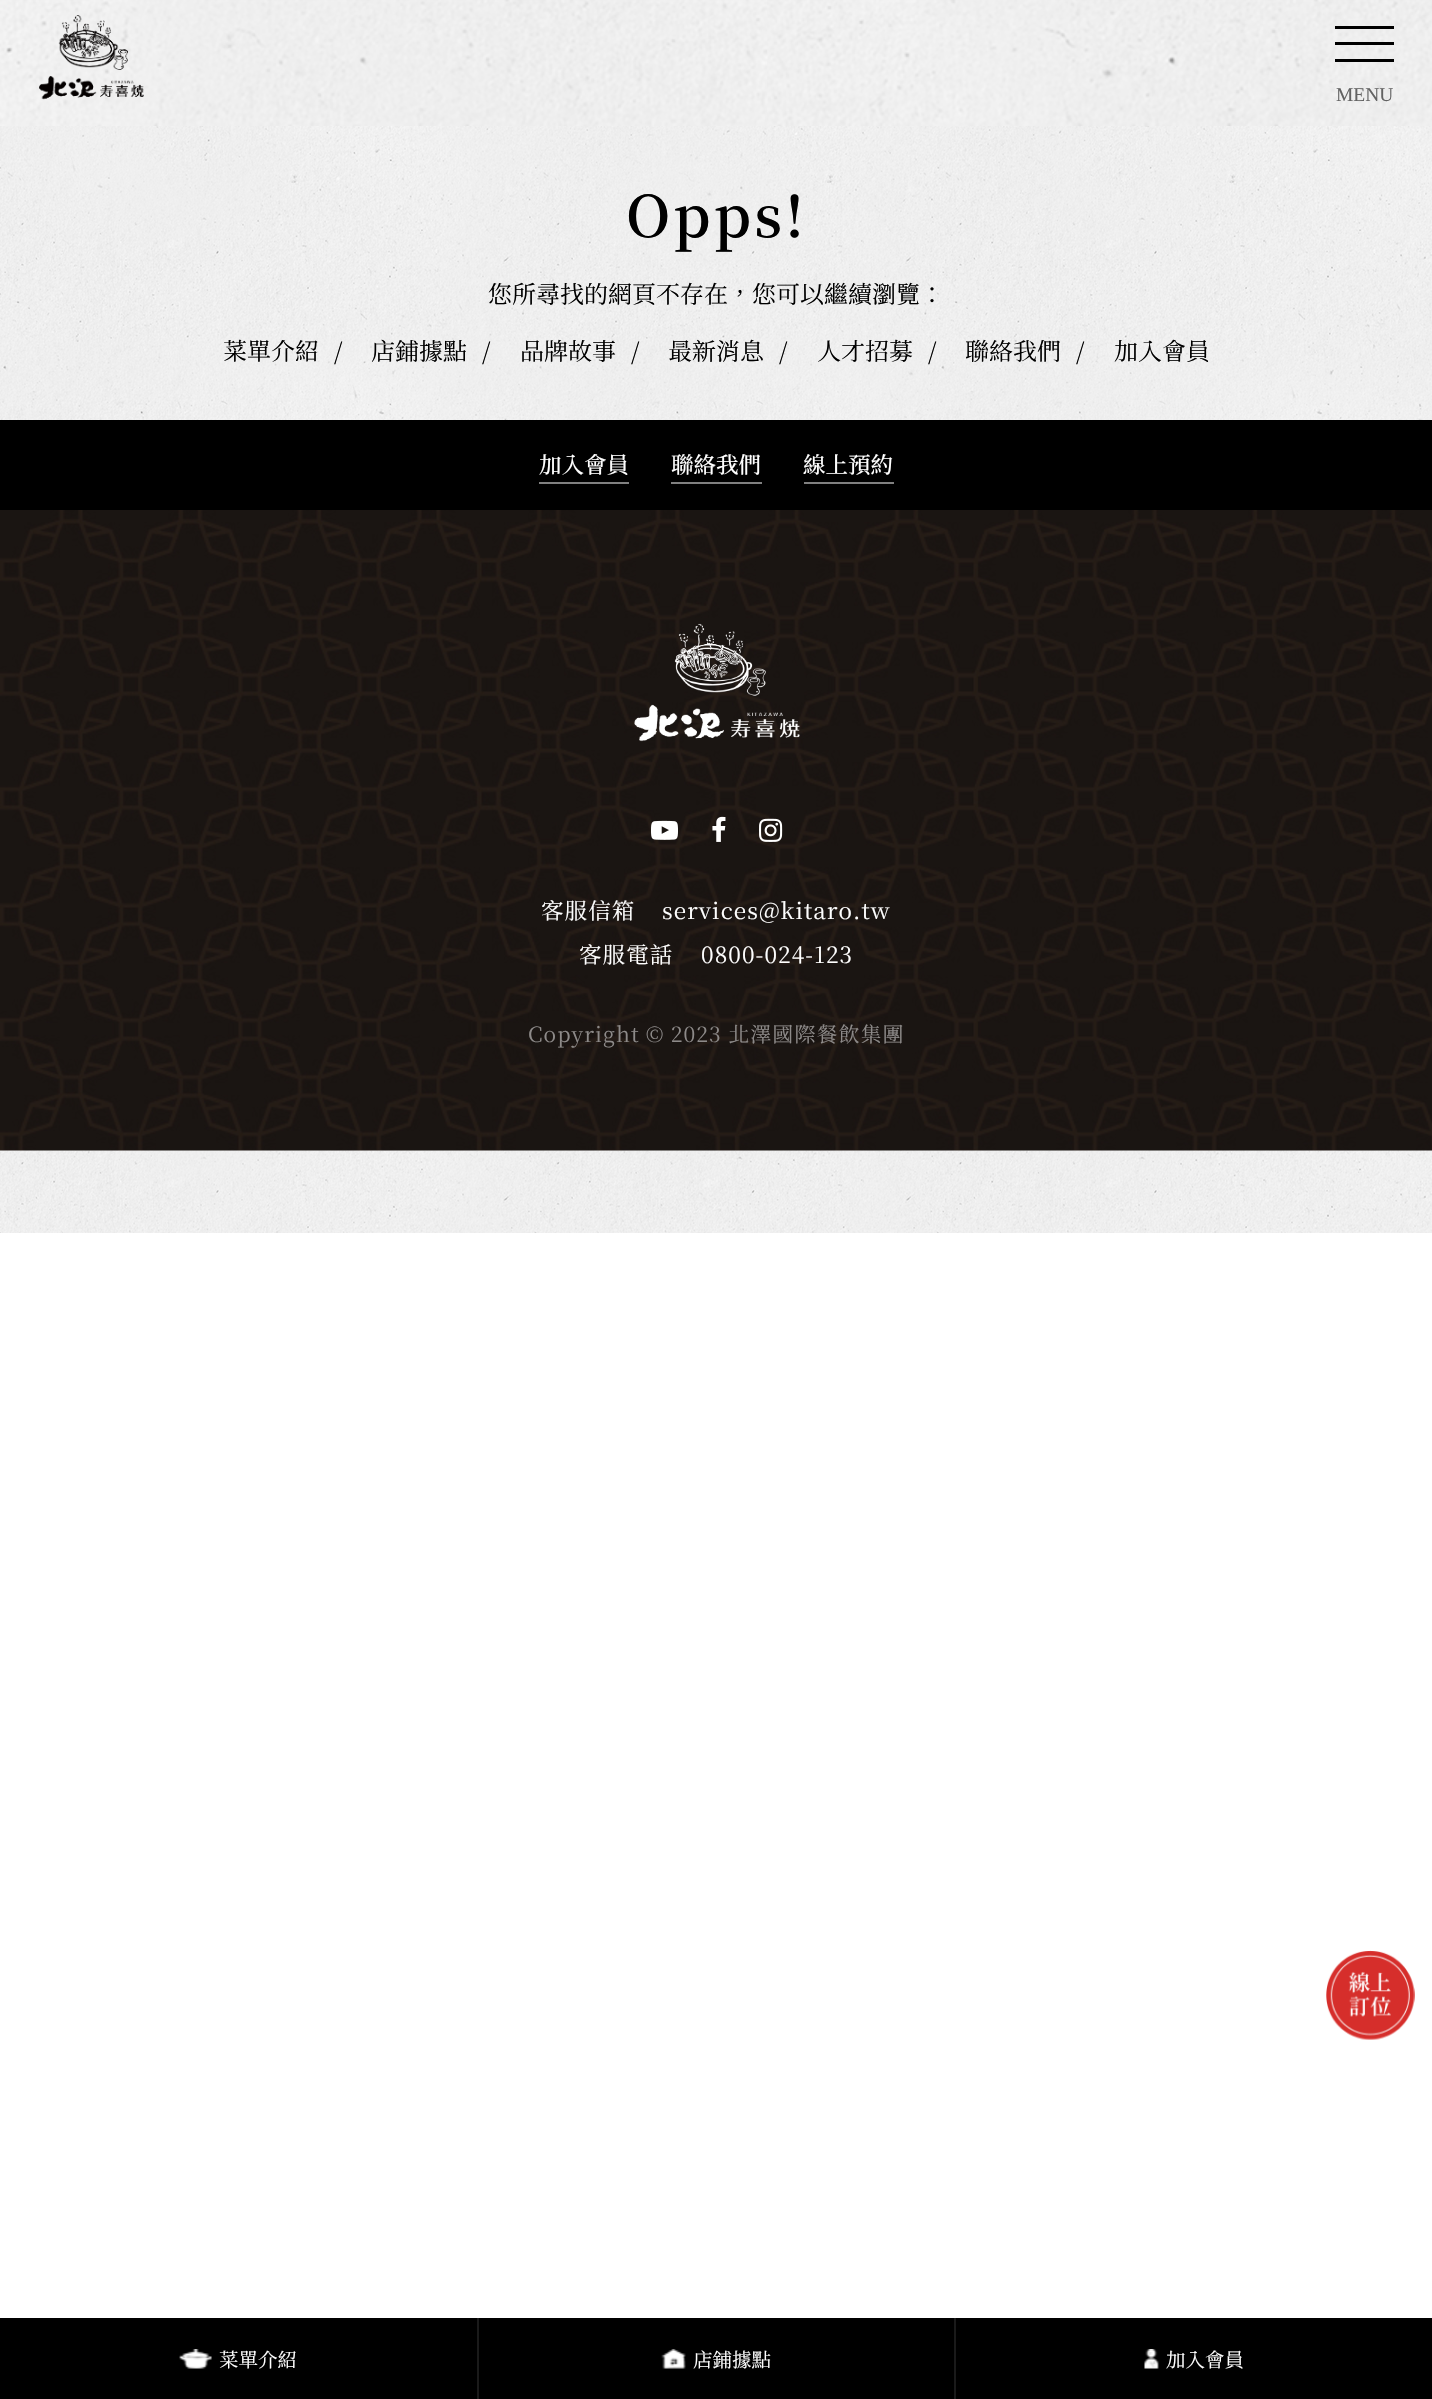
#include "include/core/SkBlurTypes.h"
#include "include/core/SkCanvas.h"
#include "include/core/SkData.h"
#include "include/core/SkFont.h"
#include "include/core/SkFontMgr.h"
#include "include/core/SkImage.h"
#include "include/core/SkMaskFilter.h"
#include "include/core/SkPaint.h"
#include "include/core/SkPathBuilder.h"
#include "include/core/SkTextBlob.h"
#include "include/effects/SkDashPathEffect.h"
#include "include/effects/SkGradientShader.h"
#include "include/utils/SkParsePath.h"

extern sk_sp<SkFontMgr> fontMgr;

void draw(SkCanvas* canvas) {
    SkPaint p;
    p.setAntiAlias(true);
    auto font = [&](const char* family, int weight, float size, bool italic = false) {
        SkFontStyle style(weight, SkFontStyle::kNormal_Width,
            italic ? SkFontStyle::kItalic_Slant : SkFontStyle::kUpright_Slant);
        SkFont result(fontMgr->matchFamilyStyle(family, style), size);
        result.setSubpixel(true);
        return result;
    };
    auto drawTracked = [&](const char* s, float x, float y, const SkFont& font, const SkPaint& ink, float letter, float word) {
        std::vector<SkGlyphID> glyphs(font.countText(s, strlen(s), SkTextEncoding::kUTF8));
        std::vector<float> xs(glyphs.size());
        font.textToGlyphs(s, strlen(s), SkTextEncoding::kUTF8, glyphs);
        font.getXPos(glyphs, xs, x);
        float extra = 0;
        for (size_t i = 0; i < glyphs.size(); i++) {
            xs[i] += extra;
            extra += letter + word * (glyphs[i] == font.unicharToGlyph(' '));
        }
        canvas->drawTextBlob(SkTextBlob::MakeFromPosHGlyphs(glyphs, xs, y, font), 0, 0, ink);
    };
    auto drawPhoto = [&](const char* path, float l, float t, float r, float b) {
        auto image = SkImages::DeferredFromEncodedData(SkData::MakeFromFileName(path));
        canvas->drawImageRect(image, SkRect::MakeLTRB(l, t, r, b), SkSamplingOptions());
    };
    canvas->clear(0xFFFFFFFF);
    drawPhoto("media/1.png", 0, 0, 1432, 126);
    drawPhoto("media/2.png", 39, 15, 144, 100);
    {
        const struct { float l, t, r, b; SkColor color; } items[] = {
            {1335, 42, 1394, 45, 0xFF000000},
            {1335, 26, 1394, 29, 0xFF000000},
            {1335, 59, 1394, 62, 0xFF000000},
        };
        for (auto [l, t, r, b, color] : items) {
            p.setColor(color);
            canvas->drawRect(SkRect::MakeLTRB(l, t, r, b), p);
        }
    }
    auto font1 = font("Liberation Serif", 400, 19.5f);
    p.setColor(0xFF626262);
    canvas->drawString("MENU", 1336, 101, font1, p);
    drawPhoto("media/12.png", 0, 126, 1432, 1233);
    auto font2 = font("Noto Serif TC", 600, 57);
    p.setColor(0xFF000000);
    drawTracked("Opps!", 626, 237, font2, p, 3, 0);
    auto font3 = font("Noto Serif TC", 400, 24);
    {
        const struct { const char* s; float x, y; } items[] = {
            {"您所尋找的網頁不存在，您可以繼續瀏覽：", 488, 303},
            {"菜單介紹", 223, 360},
            {"/", 334, 360},
            {"店鋪據點", 371, 360},
            {"/", 482, 360},
            {"品牌故事", 520, 360},
            {"/", 631, 360},
            {"最新消息", 668, 360},
            {"/", 779, 360},
            {"人才招募", 817, 360},
            {"/", 928, 360},
            {"聯絡我們", 965, 360},
            {"/", 1076, 360},
            {"加入會員", 1114, 360},
        };
        for (auto [s, x, y] : items) {
            canvas->drawString(s, x, y, font3, p);
        }
    }
    canvas->drawRect(SkRect::MakeLTRB(0, 420, 1432, 510), p);
    p.setColor(0xFF808080);
    canvas->drawRect(SkRect::MakeLTRB(539, 482, 629, 484), p);
    auto font4 = font("Noto Serif TC", 500, 22.5f);
    p.setColor(0xFFFFFFFF);
    canvas->drawString("加入會員", 539, 473, font4, p);
    p.setColor(0xFF808080);
    canvas->drawRect(SkRect::MakeLTRB(671, 482, 762, 484), p);
    p.setColor(0xFFFFFFFF);
    canvas->drawString("聯絡我們", 671, 473, font4, p);
    p.setColor(0xFF808080);
    canvas->drawRect(SkRect::MakeLTRB(804, 482, 894, 484), p);
    p.setColor(0xFFFFFFFF);
    canvas->drawString("線上預約", 803, 473, font4, p);
    drawPhoto("media/3.png", 0, 510, 1432, 1151);
    drawPhoto("media/4.png", 634, 623, 800, 742);
    drawPhoto("media/5.png", 651, 820, 678, 840);
    drawPhoto("media/6.png", 712, 816, 726, 842);
    drawPhoto("media/7.png", 759, 818, 783, 842);
    auto font5 = font("Noto Serif TC", 400, 22.5f);
    {
        const struct { const char* s; float x, y; } items[] = {
            {"客服信箱", 541, 919},
            {"services@kitaro.tw", 662, 919},
            {"客服電話", 579, 963},
            {"0800-024-123", 701, 963},
        };
        for (auto [s, x, y] : items) {
            drawTracked(s, x, y, font5, p, 1.1f, 0);
        }
    }
    auto font6 = font("Noto Serif TC", 400, 21);
    p.setColor(0xFF8D8A89);
    drawTracked("Copyright © 2023 北澤國際餐飲集團", 528, 1042, font6, p, 1.05f, 0);
    drawPhoto("media/8.png", 1326, 1950, 1415, 2040);
    p.setColor(0xFF000000);
    canvas->drawRect(SkRect::MakeLTRB(0, 2318, 1432, 2399), p);
    p.setColor(0xFF1A1A1A);
    canvas->drawRect(SkRect::MakeLTRB(477, 2318, 479, 2399), p);
    drawPhoto("media/9.png", 179, 2349, 212, 2369);
    auto font7 = font("Noto Serif TC", 400, 19.5f);
    p.setColor(0xFFFFFFFF);
    canvas->drawString("菜單介紹", 219, 2367, font7, p);
    p.setColor(0xFF1A1A1A);
    canvas->drawRect(SkRect::MakeLTRB(954, 2318, 956, 2399), p);
    drawPhoto("media/10.png", 661, 2349, 686, 2369);
    p.setColor(0xFFFFFFFF);
    canvas->drawString("店鋪據點", 693, 2367, font7, p);
    drawPhoto("media/11.png", 1144, 2349, 1159, 2369);
    canvas->drawString("加入會員", 1166, 2367, font7, p);
}
